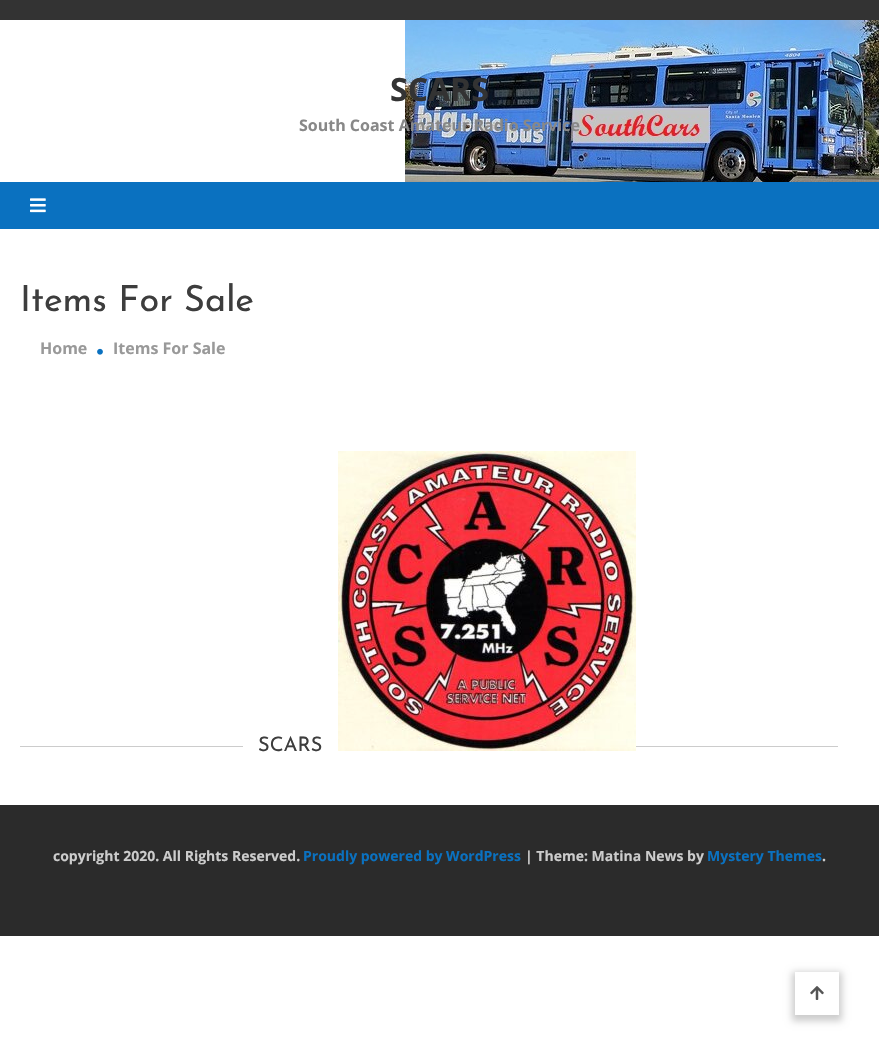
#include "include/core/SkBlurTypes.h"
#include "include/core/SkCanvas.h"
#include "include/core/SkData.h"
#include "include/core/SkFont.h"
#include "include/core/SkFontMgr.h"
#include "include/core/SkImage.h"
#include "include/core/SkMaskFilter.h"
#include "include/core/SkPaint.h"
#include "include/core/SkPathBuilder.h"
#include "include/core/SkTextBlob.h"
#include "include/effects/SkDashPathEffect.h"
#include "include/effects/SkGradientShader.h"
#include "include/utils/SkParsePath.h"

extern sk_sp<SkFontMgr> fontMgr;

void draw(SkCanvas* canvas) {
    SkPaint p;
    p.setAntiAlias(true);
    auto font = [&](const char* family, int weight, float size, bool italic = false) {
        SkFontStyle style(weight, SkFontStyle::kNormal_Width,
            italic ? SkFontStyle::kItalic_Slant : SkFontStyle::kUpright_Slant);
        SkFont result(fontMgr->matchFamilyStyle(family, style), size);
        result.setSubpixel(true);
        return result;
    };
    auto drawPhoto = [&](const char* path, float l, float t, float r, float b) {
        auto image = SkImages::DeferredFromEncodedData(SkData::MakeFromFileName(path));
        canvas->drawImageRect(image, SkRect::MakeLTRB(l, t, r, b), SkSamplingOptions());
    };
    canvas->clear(0xFFFFFFFF);
    p.setColor(0xFF333333);
    canvas->drawRect(SkRect::MakeLTRB(0, 0, 879, 20), p);
    drawPhoto("media/1.png", 405, 20, 879, 182);
    auto font1 = font("Open Sans", 700, 32);
    canvas->drawString("SCARS", 390, 101, font1, p);
    auto font2 = font("Open Sans", 700, 16);
    p.setColor(0xFF888888);
    canvas->drawString("South Coast Amateur Radio Service", 299, 131, font2, p);
    p.setColor(0xFF0A71C0);
    canvas->drawRect(SkRect::MakeLTRB(0, 182, 879, 229), p);
    drawPhoto("media/2.png", 30, 198, 46, 213);
    auto font3 = font("Josefin Sans", 100, 36);
    p.setColor(0xFF3D3D3D);
    canvas->drawString("Items For Sale", 20, 311, font3, p);
    p.setColor(0xFF999999);
    canvas->drawString("Home", 40, 354, font2, p);
    drawPhoto("media/3.png", 97, 348, 103, 355);
    canvas->drawString("Items For Sale", 113, 354, font2, p);
    p.setColor(0xFFCCCCCC);
    canvas->drawRect(SkRect::MakeLTRB(20, 746, 243, 747), p);
    auto font4 = font("Josefin Sans", 100, 20);
    p.setColor(0xFF3D3D3D);
    canvas->drawString("SCARS", 258, 751, font4, p);
    p.setColor(0xFFCCCCCC);
    canvas->drawRect(SkRect::MakeLTRB(636, 746, 838, 747), p);
    drawPhoto("media/4.png", 338, 451, 636, 751);
    p.setColor(0xFF2B2B2B);
    canvas->drawRect(SkRect::MakeLTRB(0, 805, 879, 936), p);
    auto font5 = font("Open Sans", 700, 14);
    p.setColor(0xFFCCCCCC);
    canvas->drawString("copyright 2020. All Rights Reserved.", 53, 861, font5, p);
    p.setColor(0xFF0A71C0);
    canvas->drawString("Proudly powered by WordPress", 303, 861, font5, p);
    p.setColor(0xFFCCCCCC);
    canvas->drawString("| Theme: Matina News by", 525, 861, font5, p);
    p.setColor(0xFF0A71C0);
    canvas->drawString("Mystery Themes", 707, 861, font5, p);
    p.setColor(0xFFCCCCCC);
    canvas->drawString(".", 822, 861, font5, p);
    canvas->save();
    canvas->clipPath(SkPathBuilder(SkPathFillType::kEvenOdd).moveTo(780, 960).lineTo(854, 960).lineTo(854, 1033).lineTo(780, 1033).close().moveTo(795, 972).lineTo(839, 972).lineTo(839, 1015).lineTo(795, 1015).close().detach(), true);
    p.setColor(0x33000000);
    p.setMaskFilter(SkMaskFilter::MakeBlur(kNormal_SkBlurStyle, 3.5f));
    canvas->drawRect(SkRect::MakeLTRB(792, 972, 842, 1021), p);
    p.setMaskFilter(nullptr);
    canvas->restore();
    drawPhoto("media/5.png", 810, 986, 824, 1000);
}
